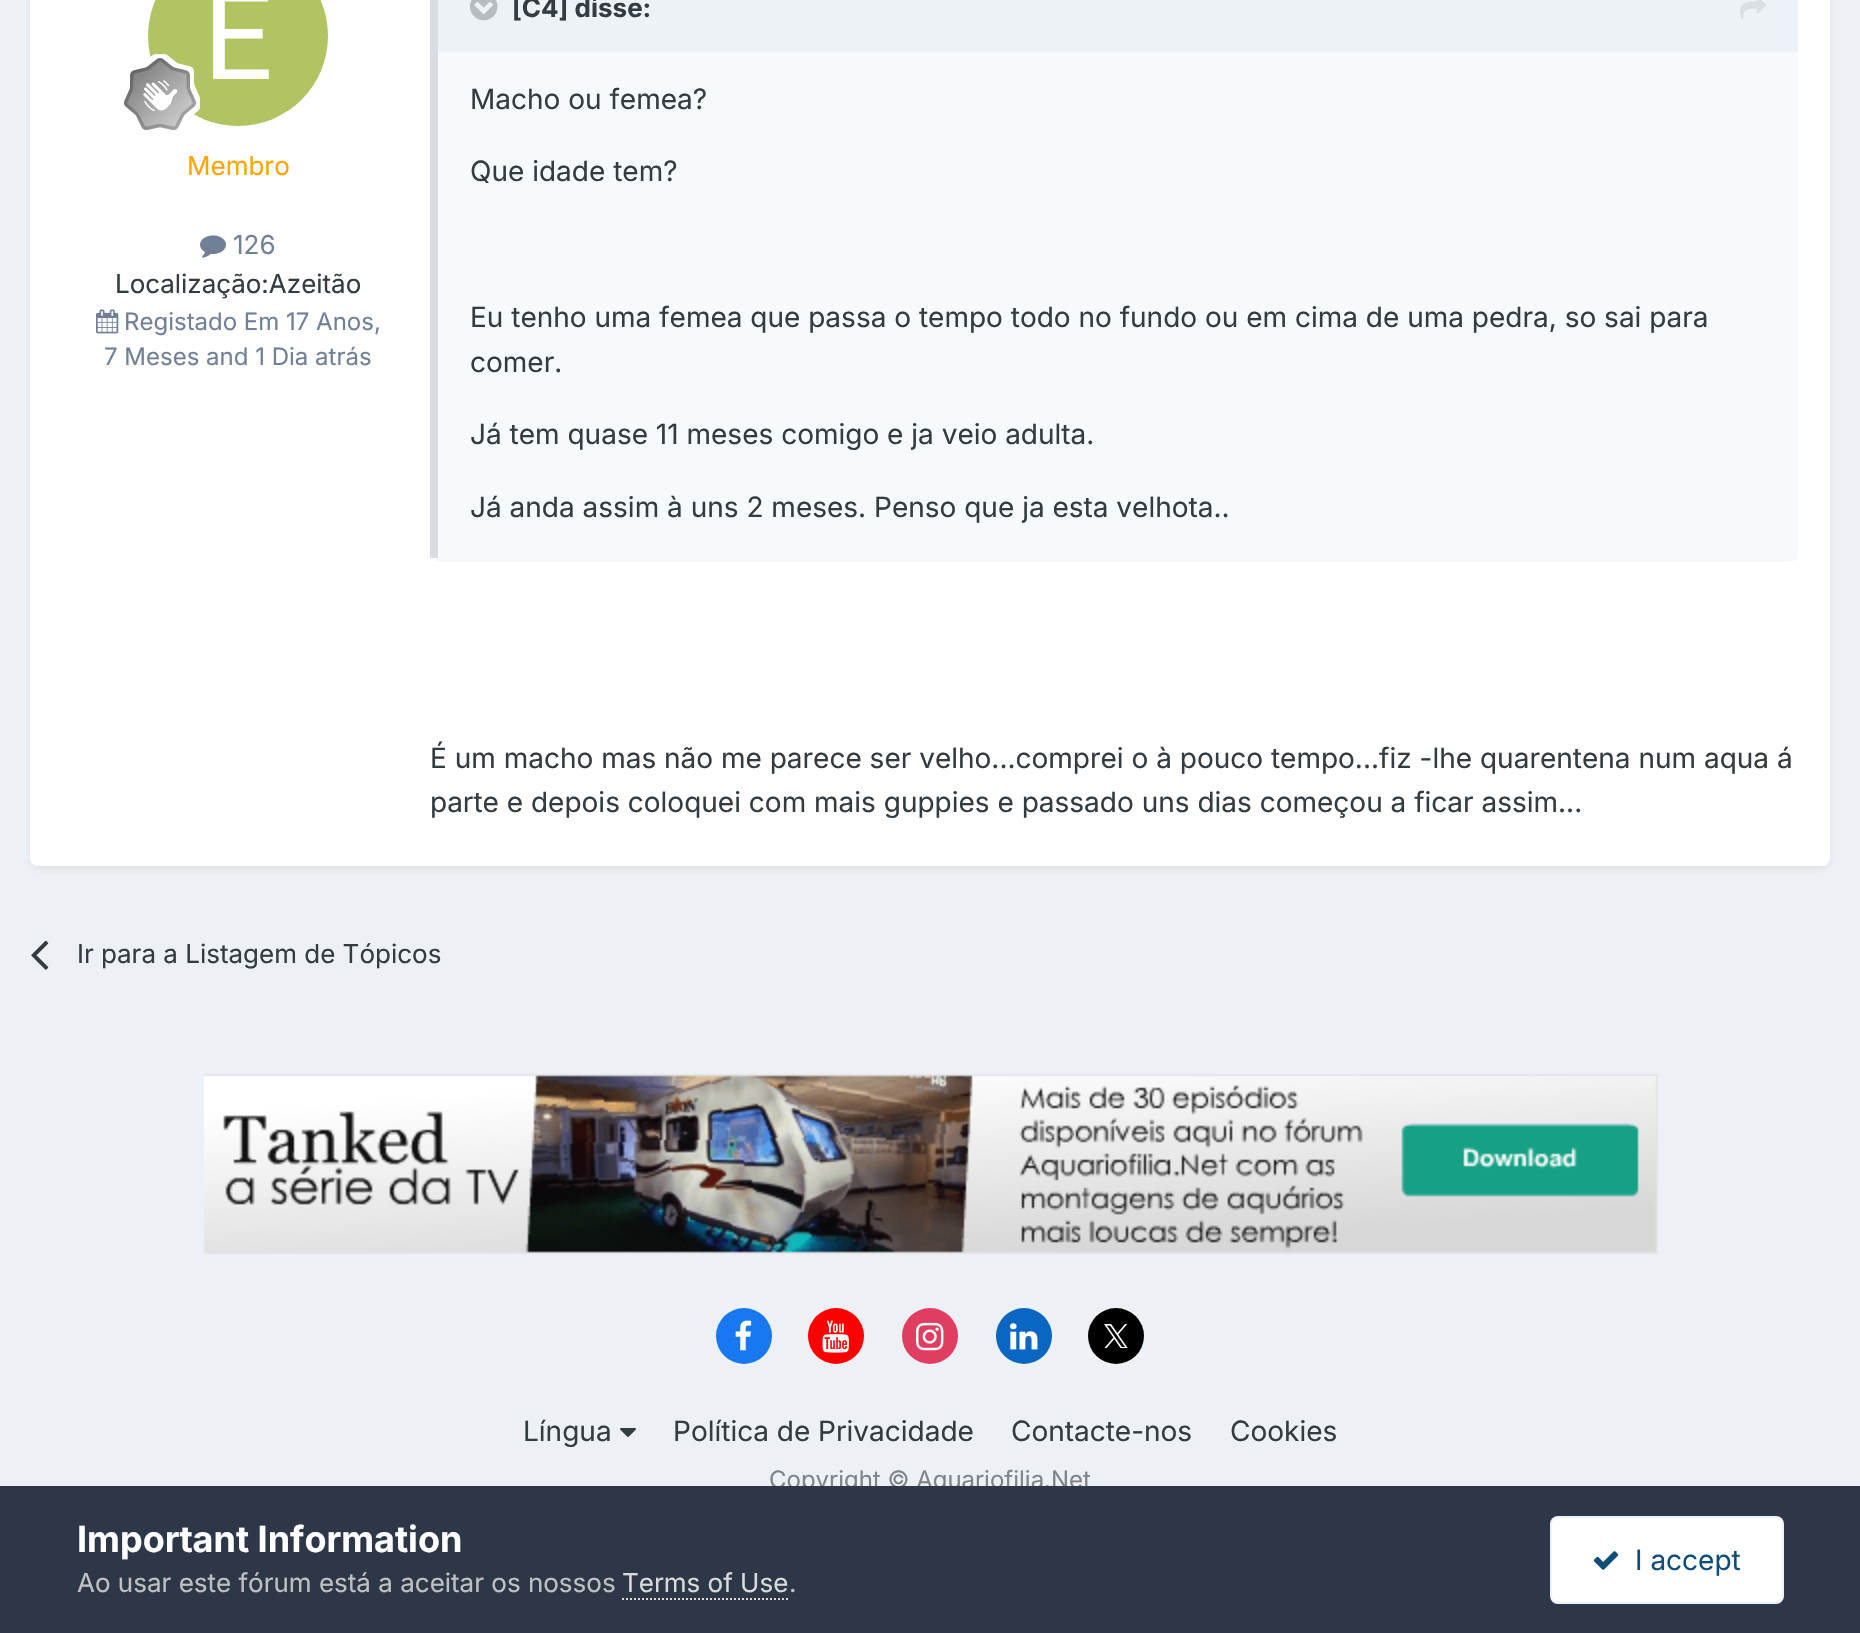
#include "include/core/SkBlurTypes.h"
#include "include/core/SkCanvas.h"
#include "include/core/SkData.h"
#include "include/core/SkFont.h"
#include "include/core/SkFontMgr.h"
#include "include/core/SkImage.h"
#include "include/core/SkMaskFilter.h"
#include "include/core/SkPaint.h"
#include "include/core/SkPathBuilder.h"
#include "include/core/SkTextBlob.h"
#include "include/effects/SkDashPathEffect.h"
#include "include/effects/SkGradientShader.h"
#include "include/utils/SkParsePath.h"

extern sk_sp<SkFontMgr> fontMgr;

void draw(SkCanvas* canvas) {
    SkPaint p;
    p.setAntiAlias(true);
    auto font = [&](const char* family, int weight, float size, bool italic = false) {
        SkFontStyle style(weight, SkFontStyle::kNormal_Width,
            italic ? SkFontStyle::kItalic_Slant : SkFontStyle::kUpright_Slant);
        SkFont result(fontMgr->matchFamilyStyle(family, style), size);
        result.setSubpixel(true);
        return result;
    };
    auto drawPhoto = [&](const char* path, float l, float t, float r, float b) {
        auto image = SkImages::DeferredFromEncodedData(SkData::MakeFromFileName(path));
        canvas->drawImageRect(image, SkRect::MakeLTRB(l, t, r, b), SkSamplingOptions());
    };
    canvas->clear(0xFFEDF0F4);
    p.setColor(0x1A2D3748);
    p.setMaskFilter(SkMaskFilter::MakeBlur(kNormal_SkBlurStyle, 4));
    canvas->drawRoundRect(SkRect::MakeLTRB(32, -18, 1828, 868), 6, 6, p);
    p.setMaskFilter(nullptr);
    p.setColor(0xFFFFFFFF);
    canvas->drawRoundRect(SkRect::MakeLTRB(30, -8, 1830, 866), 8, 8, p);
    drawPhoto("media/1.png", 148, 0, 328, 126);
    drawPhoto("media/2.png", 124, 54, 200, 130);
    auto font1 = font("Inter", 400, 26);
    p.setColor(0xFFFFA500);
    canvas->drawString("Membro", 187, 175, font1, p);
    drawPhoto("media/3.png", 200, 235, 226, 258);
    p.setColor(0xFF718096);
    canvas->drawString("126", 233, 254, font1, p);
    p.setColor(0xFF353C41);
    canvas->drawString("Localização:Azeitão", 115, 293, font1, p);
    drawPhoto("media/4.png", 96, 309, 119, 334);
    auto font2 = font("Inter", 400, 24);
    p.setColor(0xFF718096);
    canvas->drawString("Registado Em 17 Anos,", 124, 330, font2, p);
    canvas->drawString("7 Meses and 1 Dia atrás", 104, 365, font2, p);
    p.setColor(0xFFF7FAFC);
    canvas->drawRoundRect(SkRect::MakeLTRB(430, -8, 1798, 562), 8, 8, p);
    p.setColor(0x262D3748);
    canvas->drawRect(SkRect::MakeLTRB(430, 0, 438, 558), p);
    p.setColor(0xFFEDF2F7);
    canvas->drawRect(SkRect::MakeLTRB(438, 0, 1798, 52), p);
    drawPhoto("media/5.png", 470, 0, 498, 21);
    auto font3 = font("Inter", 700, 26);
    p.setColor(0xFF353C41);
    canvas->drawString("[C4] disse:", 512, 17, font3, p);
    drawPhoto("media/6.png", 1740, 0, 1766, 20);
    auto font4 = font("Inter", 400, 28);
    {
        const struct { const char* s; float x, y; } items[] = {
            {"Macho ou femea?", 470, 109},
            {"Que idade tem?", 470, 181},
            {"Eu tenho uma femea que passa o tempo todo no fundo ou em cima de uma pedra, so sai para", 470, 327},
            {"comer.", 470, 372},
            {"Já tem quase 11 meses comigo e ja veio adulta.", 470, 444},
            {"Já anda assim à uns 2 meses. Penso que ja esta velhota..", 470, 517},
            {"É um macho mas não me parece ser velho...comprei o à pouco tempo...fiz -lhe quarentena num aqua á", 430, 768},
            {"parte e depois coloquei com mais guppies e passado uns dias começou a ficar assim...", 430, 812},
        };
        for (auto [s, x, y] : items) {
            canvas->drawString(s, x, y, font4, p);
        }
    }
    drawPhoto("media/7.png", 31, 940, 49, 970);
    canvas->drawString("Ir para a Listagem de Tópicos", 77, 963, font1, p);
    drawPhoto("media/8.png", 204, 1074, 1658, 1254);
    p.setColor(0xFF1778F2);
    canvas->drawCircle(744, 1336, 28, p);
    drawPhoto("media/9.png", 735, 1320, 752, 1351);
    p.setColor(0xFFFF0000);
    canvas->drawCircle(836, 1336, 28, p);
    drawPhoto("media/10.png", 822, 1320, 849, 1353);
    p.setColor(0xFFE13D62);
    canvas->drawCircle(930, 1336, 28, p);
    drawPhoto("media/11.png", 916, 1322, 944, 1351);
    p.setColor(0xFF0A66C2);
    canvas->drawCircle(1024, 1336, 28, p);
    drawPhoto("media/12.png", 1010, 1323, 1038, 1350);
    p.setColor(0xFF000000);
    canvas->drawCircle(1116, 1336, 28, p);
    drawPhoto("media/13.png", 1104, 1324, 1128, 1348);
    p.setColor(0xFF353C41);
    canvas->drawString("Língua", 523, 1441, font4, p);
    drawPhoto("media/14.png", 620, 1428, 636, 1437);
    {
        const struct { const char* s; float x, y; } items[] = {
            {"Política de Privacidade", 673, 1441},
            {"Contacte-nos", 1011, 1441},
            {"Cookies", 1230, 1441},
        };
        for (auto [s, x, y] : items) {
            canvas->drawString(s, x, y, font4, p);
        }
    }
    p.setColor(0xFF7F8489);
    canvas->drawString("Copyright © Aquariofilia.Net", 769, 1488, font2, p);
    p.setColor(0xFF2D3748);
    canvas->drawRect(SkRect::MakeLTRB(0, 1486, 1860, 1633), p);
    auto font5 = font("Inter", 700, 36);
    p.setColor(0xFFFFFFFF);
    canvas->drawString("Important Information", 77, 1552, font5, p);
    p.setColor(0xFFC0C0C0);
    canvas->drawString("Ao usar este fórum está a aceitar os nossos", 77, 1592, font1, p);
    p.setColor(0xFFDADADA);
    canvas->drawString("Terms of Use", 622, 1592, font1, p);
    p.setStyle(SkPaint::kStroke_Style);
    p.setStrokeWidth(2);
    p.setPathEffect(SkDashPathEffect::Make({{2, 2}}, 0));
    canvas->drawPath(SkPathBuilder().moveTo(622, 1599).lineTo(788, 1599).detach(), p);
    p.setPathEffect(nullptr);
    p.setStyle(SkPaint::kFill_Style);
    p.setColor(0xFFC0C0C0);
    canvas->drawString(".", 789, 1592, font1, p);
    p.setColor(0xFFFFFFFF);
    canvas->drawRoundRect(SkRect::MakeLTRB(1550, 1516, 1784, 1604), 8, 8, p);
    p.setStyle(SkPaint::kStroke_Style);
    p.setColor(0x120E4C79);
    canvas->drawRoundRect(SkRect::MakeLTRB(1551, 1517, 1783, 1603), 7, 7, p);
    drawPhoto("media/15.png", 1593, 1551, 1619, 1570);
    p.setStyle(SkPaint::kFill_Style);
    p.setColor(0xFF0E4C79);
    canvas->drawString("I accept", 1635, 1570, font4, p);
}
